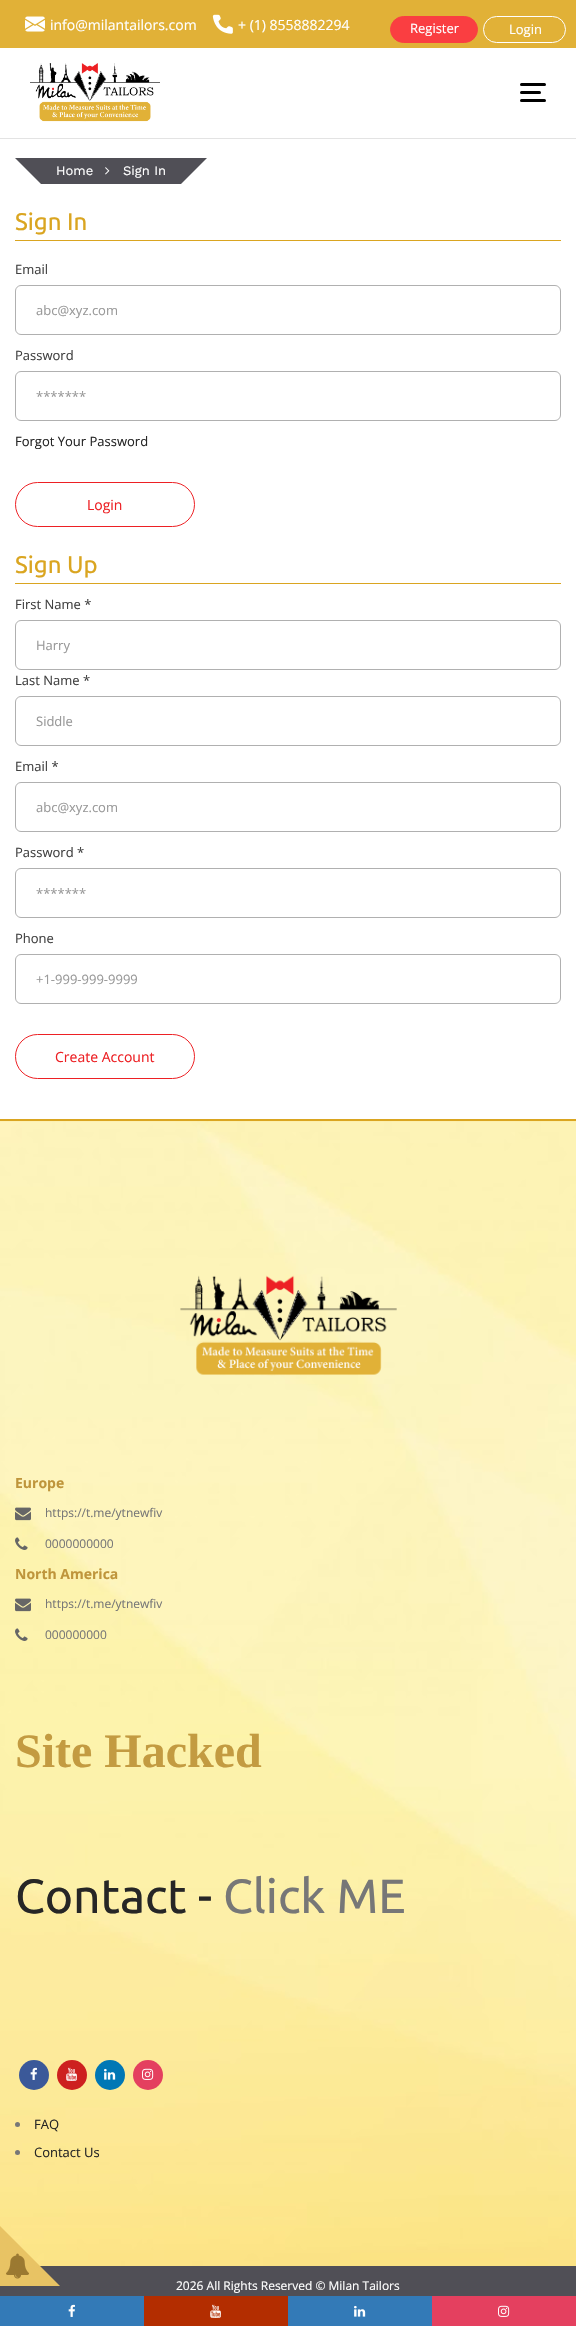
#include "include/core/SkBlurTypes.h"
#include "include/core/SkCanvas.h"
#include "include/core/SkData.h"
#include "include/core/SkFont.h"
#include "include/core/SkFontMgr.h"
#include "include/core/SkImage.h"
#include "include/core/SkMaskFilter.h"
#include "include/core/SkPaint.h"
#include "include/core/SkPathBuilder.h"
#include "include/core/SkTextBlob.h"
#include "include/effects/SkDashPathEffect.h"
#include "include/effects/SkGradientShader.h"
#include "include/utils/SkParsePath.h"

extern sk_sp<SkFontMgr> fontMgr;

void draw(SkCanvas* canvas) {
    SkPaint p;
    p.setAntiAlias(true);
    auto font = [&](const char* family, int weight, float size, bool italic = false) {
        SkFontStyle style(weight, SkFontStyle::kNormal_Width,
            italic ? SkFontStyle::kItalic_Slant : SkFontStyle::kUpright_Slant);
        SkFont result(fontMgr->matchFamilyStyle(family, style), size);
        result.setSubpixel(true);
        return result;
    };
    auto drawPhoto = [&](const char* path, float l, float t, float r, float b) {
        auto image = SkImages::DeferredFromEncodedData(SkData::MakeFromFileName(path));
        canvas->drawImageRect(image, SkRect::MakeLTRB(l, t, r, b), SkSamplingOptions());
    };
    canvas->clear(0xFFFFFFFF);
    p.setColor(0xFFE1B137);
    canvas->drawRect(SkRect::MakeLTRB(0, 0, 576, 48), p);
    drawPhoto("media/1.png", 25, 16, 45, 32);
    auto font1 = font("Open Sans", 400, 14);
    p.setColor(0xFFFFFFFF);
    canvas->drawString("info@milantailors.com", 50, 30, font1, p);
    drawPhoto("media/2.png", 212, 14, 233, 34);
    canvas->drawString("+ (1) 8558882294", 238, 30, font1, p);
    p.setColor(0xFFFA3E41);
    canvas->drawRoundRect(SkRect::MakeLTRB(390.5f, 16.5f, 477.5f, 42.5f), 13, 13, p);
    p.setStyle(SkPaint::kStroke_Style);
    p.setStrokeWidth(1);
    canvas->drawRoundRect(SkRect::MakeLTRB(390.5f, 16.5f, 477.5f, 42.5f), 13, 13, p);
    auto font2 = font("Open Sans", 400, 13);
    p.setStyle(SkPaint::kFill_Style);
    p.setColor(0xFFFFFFFF);
    canvas->drawString("Register", 410, 33, font2, p);
    p.setStyle(SkPaint::kStroke_Style);
    canvas->drawRoundRect(SkRect::MakeLTRB(483.5f, 16.5f, 565.5f, 42.5f), 13, 13, p);
    p.setStyle(SkPaint::kFill_Style);
    canvas->drawString("Login", 509, 34, font2, p);
    p.setColor(0xFFE3E3E3);
    canvas->drawRect(SkRect::MakeLTRB(0, 138, 576, 139), p);
    drawPhoto("media/3.png", 30, 63, 160, 122);
    p.setColor(0xFF000000);
    canvas->drawRoundRect(SkRect::MakeLTRB(520, 83, 546, 86), 1.5f, 1.5f, p);
    canvas->drawRoundRect(SkRect::MakeLTRB(520, 91, 541, 94), 1.5f, 1.5f, p);
    canvas->drawRoundRect(SkRect::MakeLTRB(520, 99, 546, 102), 1.5f, 1.5f, p);
    p.setColor(0xFF504F56);
    canvas->drawRect(SkRect::MakeLTRB(41, 158, 181, 184), p);
    canvas->drawPath(SkPathBuilder().moveTo(15, 158).lineTo(41, 158).lineTo(41, 184).close().detach(), p);
    auto font3 = font("Work Sans", 400, 13);
    p.setColor(0xFFFFFFFF);
    canvas->drawString("Home", 56, 175, font3, p);
    drawPhoto("media/4.png", 105, 167, 110, 175);
    canvas->drawString("Sign In", 123, 175, font3, p);
    p.setColor(0xFF504F56);
    canvas->drawPath(SkPathBuilder().moveTo(181, 158).lineTo(207, 158).lineTo(181, 184).close().detach(), p);
    p.setColor(0xFFDAA520);
    canvas->drawRect(SkRect::MakeLTRB(15, 240, 561, 241), p);
    auto font4 = font("Ubuntu", 400, 24);
    canvas->drawString("Sign In", 15, 230, font4, p);
    p.setColor(0xFF414141);
    canvas->drawString("Email", 15, 274, font2, p);
    p.setStyle(SkPaint::kStroke_Style);
    p.setColor(0xFFB0B0B0);
    canvas->drawRoundRect(SkRect::MakeLTRB(15.5f, 285.5f, 560.5f, 334.5f), 5.5f, 5.5f, p);
    p.setStyle(SkPaint::kFill_Style);
    p.setColor(0xFF999999);
    canvas->drawString("abc@xyz.com", 36, 315, font2, p);
    p.setColor(0xFF414141);
    canvas->drawString("Password", 15, 360, font2, p);
    p.setStyle(SkPaint::kStroke_Style);
    p.setColor(0xFFB0B0B0);
    canvas->drawRoundRect(SkRect::MakeLTRB(15.5f, 371.5f, 560.5f, 420.5f), 5.5f, 5.5f, p);
    p.setStyle(SkPaint::kFill_Style);
    p.setColor(0xFF999999);
    canvas->drawString("*******", 36, 401, font2, p);
    p.setColor(0xFF262626);
    canvas->drawString("Forgot Your Password", 15, 446, font2, p);
    p.setStyle(SkPaint::kStroke_Style);
    p.setColor(0xFFED2024);
    canvas->drawRoundRect(SkRect::MakeLTRB(15.5f, 482.5f, 194.5f, 526.5f), 22, 22, p);
    p.setStyle(SkPaint::kFill_Style);
    canvas->drawString("Login", 87, 510, font1, p);
    p.setColor(0xFFDAA520);
    canvas->drawRect(SkRect::MakeLTRB(15, 583, 561, 584), p);
    canvas->drawString("Sign Up", 15, 573, font4, p);
    p.setColor(0xFF414141);
    canvas->drawString("First Name *", 15, 609, font2, p);
    p.setStyle(SkPaint::kStroke_Style);
    p.setColor(0xFFB0B0B0);
    canvas->drawRoundRect(SkRect::MakeLTRB(15.5f, 620.5f, 560.5f, 669.5f), 5.5f, 5.5f, p);
    p.setStyle(SkPaint::kFill_Style);
    p.setColor(0xFF999999);
    canvas->drawString("Harry", 36, 650, font2, p);
    p.setColor(0xFF414141);
    canvas->drawString("Last Name *", 15, 685, font2, p);
    p.setStyle(SkPaint::kStroke_Style);
    p.setColor(0xFFB0B0B0);
    canvas->drawRoundRect(SkRect::MakeLTRB(15.5f, 696.5f, 560.5f, 745.5f), 5.5f, 5.5f, p);
    p.setStyle(SkPaint::kFill_Style);
    p.setColor(0xFF999999);
    canvas->drawString("Siddle", 36, 726, font2, p);
    p.setColor(0xFF414141);
    canvas->drawString("Email *", 15, 771, font2, p);
    p.setStyle(SkPaint::kStroke_Style);
    p.setColor(0xFFB0B0B0);
    canvas->drawRoundRect(SkRect::MakeLTRB(15.5f, 782.5f, 560.5f, 831.5f), 5.5f, 5.5f, p);
    p.setStyle(SkPaint::kFill_Style);
    p.setColor(0xFF999999);
    canvas->drawString("abc@xyz.com", 36, 812, font2, p);
    p.setColor(0xFF414141);
    canvas->drawString("Password *", 15, 857, font2, p);
    p.setStyle(SkPaint::kStroke_Style);
    p.setColor(0xFFB0B0B0);
    canvas->drawRoundRect(SkRect::MakeLTRB(15.5f, 868.5f, 560.5f, 917.5f), 5.5f, 5.5f, p);
    p.setStyle(SkPaint::kFill_Style);
    p.setColor(0xFF999999);
    canvas->drawString("*******", 36, 898, font2, p);
    p.setColor(0xFF414141);
    canvas->drawString("Phone", 15, 943, font2, p);
    p.setStyle(SkPaint::kStroke_Style);
    p.setColor(0xFFB0B0B0);
    canvas->drawRoundRect(SkRect::MakeLTRB(15.5f, 954.5f, 560.5f, 1003.5f), 5.5f, 5.5f, p);
    p.setStyle(SkPaint::kFill_Style);
    p.setColor(0xFF999999);
    canvas->drawString("+1-999-999-9999", 36, 984, font2, p);
    p.setStyle(SkPaint::kStroke_Style);
    p.setColor(0xFFED2024);
    canvas->drawRoundRect(SkRect::MakeLTRB(15.5f, 1034.5f, 194.5f, 1078.5f), 22, 22, p);
    p.setStyle(SkPaint::kFill_Style);
    canvas->drawString("Create Account", 55, 1062, font1, p);
    drawPhoto("media/5.png", 0, 1121, 576, 2266);
    p.setColor(0xFFDAA520);
    canvas->drawRect(SkRect::MakeLTRB(0, 1119, 576, 1121), p);
    drawPhoto("media/6.png", 180, 1275, 397, 1376);
    auto font5 = font("Open Sans", 700, 14);
    p.setColor(0xFFBF953B);
    canvas->drawString("Europe", 15, 1488, font5, p);
    drawPhoto("media/7.png", 15, 1507, 31, 1521);
    auto font6 = font("Open Sans", 400, 12);
    p.setColor(0xFF777777);
    canvas->drawString("https://t.me/ytnewfiv", 45, 1517, font6, p);
    drawPhoto("media/8.png", 15, 1537, 28, 1550);
    canvas->drawString("0000000000", 45, 1548, font6, p);
    p.setColor(0xFFBF953B);
    canvas->drawString("North America", 15, 1579, font5, p);
    drawPhoto("media/9.png", 15, 1598, 31, 1612);
    p.setColor(0xFF777777);
    canvas->drawString("https://t.me/ytnewfiv", 45, 1608, font6, p);
    drawPhoto("media/10.png", 15, 1628, 28, 1641);
    canvas->drawString("000000000", 45, 1639, font6, p);
    auto font7 = font("Liberation Serif", 700, 48);
    p.setColor(0xFFC39B41);
    canvas->drawString("Site Hacked", 15, 1767, font7, p);
    auto font8 = font("Ubuntu", 400, 48);
    p.setColor(0xFF262626);
    canvas->drawString("Contact -", 15, 1913, font8, p);
    p.setColor(0xFF777777);
    canvas->drawString("Click ME", 223, 1913, font8, p);
    p.setColor(0xFF3B5999);
    canvas->drawCircle(34, 2075, 15, p);
    drawPhoto("media/11.png", 30, 2067, 37, 2080);
    p.setColor(0xFFCD201F);
    canvas->drawCircle(72, 2075, 15, p);
    drawPhoto("media/12.png", 66, 2067, 77, 2081);
    p.setColor(0xFF0077B5);
    canvas->drawCircle(110, 2075, 15, p);
    drawPhoto("media/13.png", 104, 2068, 116, 2080);
    p.setColor(0xFFE4405F);
    canvas->drawCircle(148, 2075, 15, p);
    drawPhoto("media/14.png", 142, 2068, 154, 2080);
    p.setColor(0xFF777777);
    canvas->drawCircle(17.5f, 2124.5f, 2.5f, p);
    p.setColor(0xFF262626);
    canvas->drawString("FAQ", 34, 2129, font2, p);
    p.setColor(0xFF777777);
    canvas->drawCircle(17.5f, 2152.5f, 2.5f, p);
    p.setColor(0xFF262626);
    canvas->drawString("Contact Us", 34, 2157, font2, p);
    p.setColor(0xFF504F56);
    canvas->drawRect(SkRect::MakeLTRB(0, 2266, 576, 2296), p);
    p.setColor(0xFFFFFFFF);
    canvas->drawString("2026 All Rights Reserved © Milan Tailors", 176, 2290, font6, p);
    p.setColor(0xFF337AB7);
    canvas->drawRect(SkRect::MakeLTRB(0, 2296, 144, 2326), p);
    drawPhoto("media/15.png", 68, 2304, 75, 2317);
    p.setColor(0xFFB32D00);
    canvas->drawRect(SkRect::MakeLTRB(144, 2296, 288, 2326), p);
    drawPhoto("media/16.png", 210, 2304, 221, 2318);
    p.setColor(0xFF337AB7);
    canvas->drawRect(SkRect::MakeLTRB(288, 2296, 432, 2326), p);
    drawPhoto("media/17.png", 354, 2305, 366, 2317);
    p.setColor(0xFFE4405F);
    canvas->drawRect(SkRect::MakeLTRB(432, 2296, 576, 2326), p);
    drawPhoto("media/14.png", 498, 2305, 510, 2317);
    p.setColor(0xFFE8C364);
    canvas->drawPath(SkPathBuilder().moveTo(0, 2286).lineTo(0, 2226).lineTo(60, 2286).close().detach(), p);
    drawPhoto("media/18.png", 6, 2253, 29, 2279);
}
